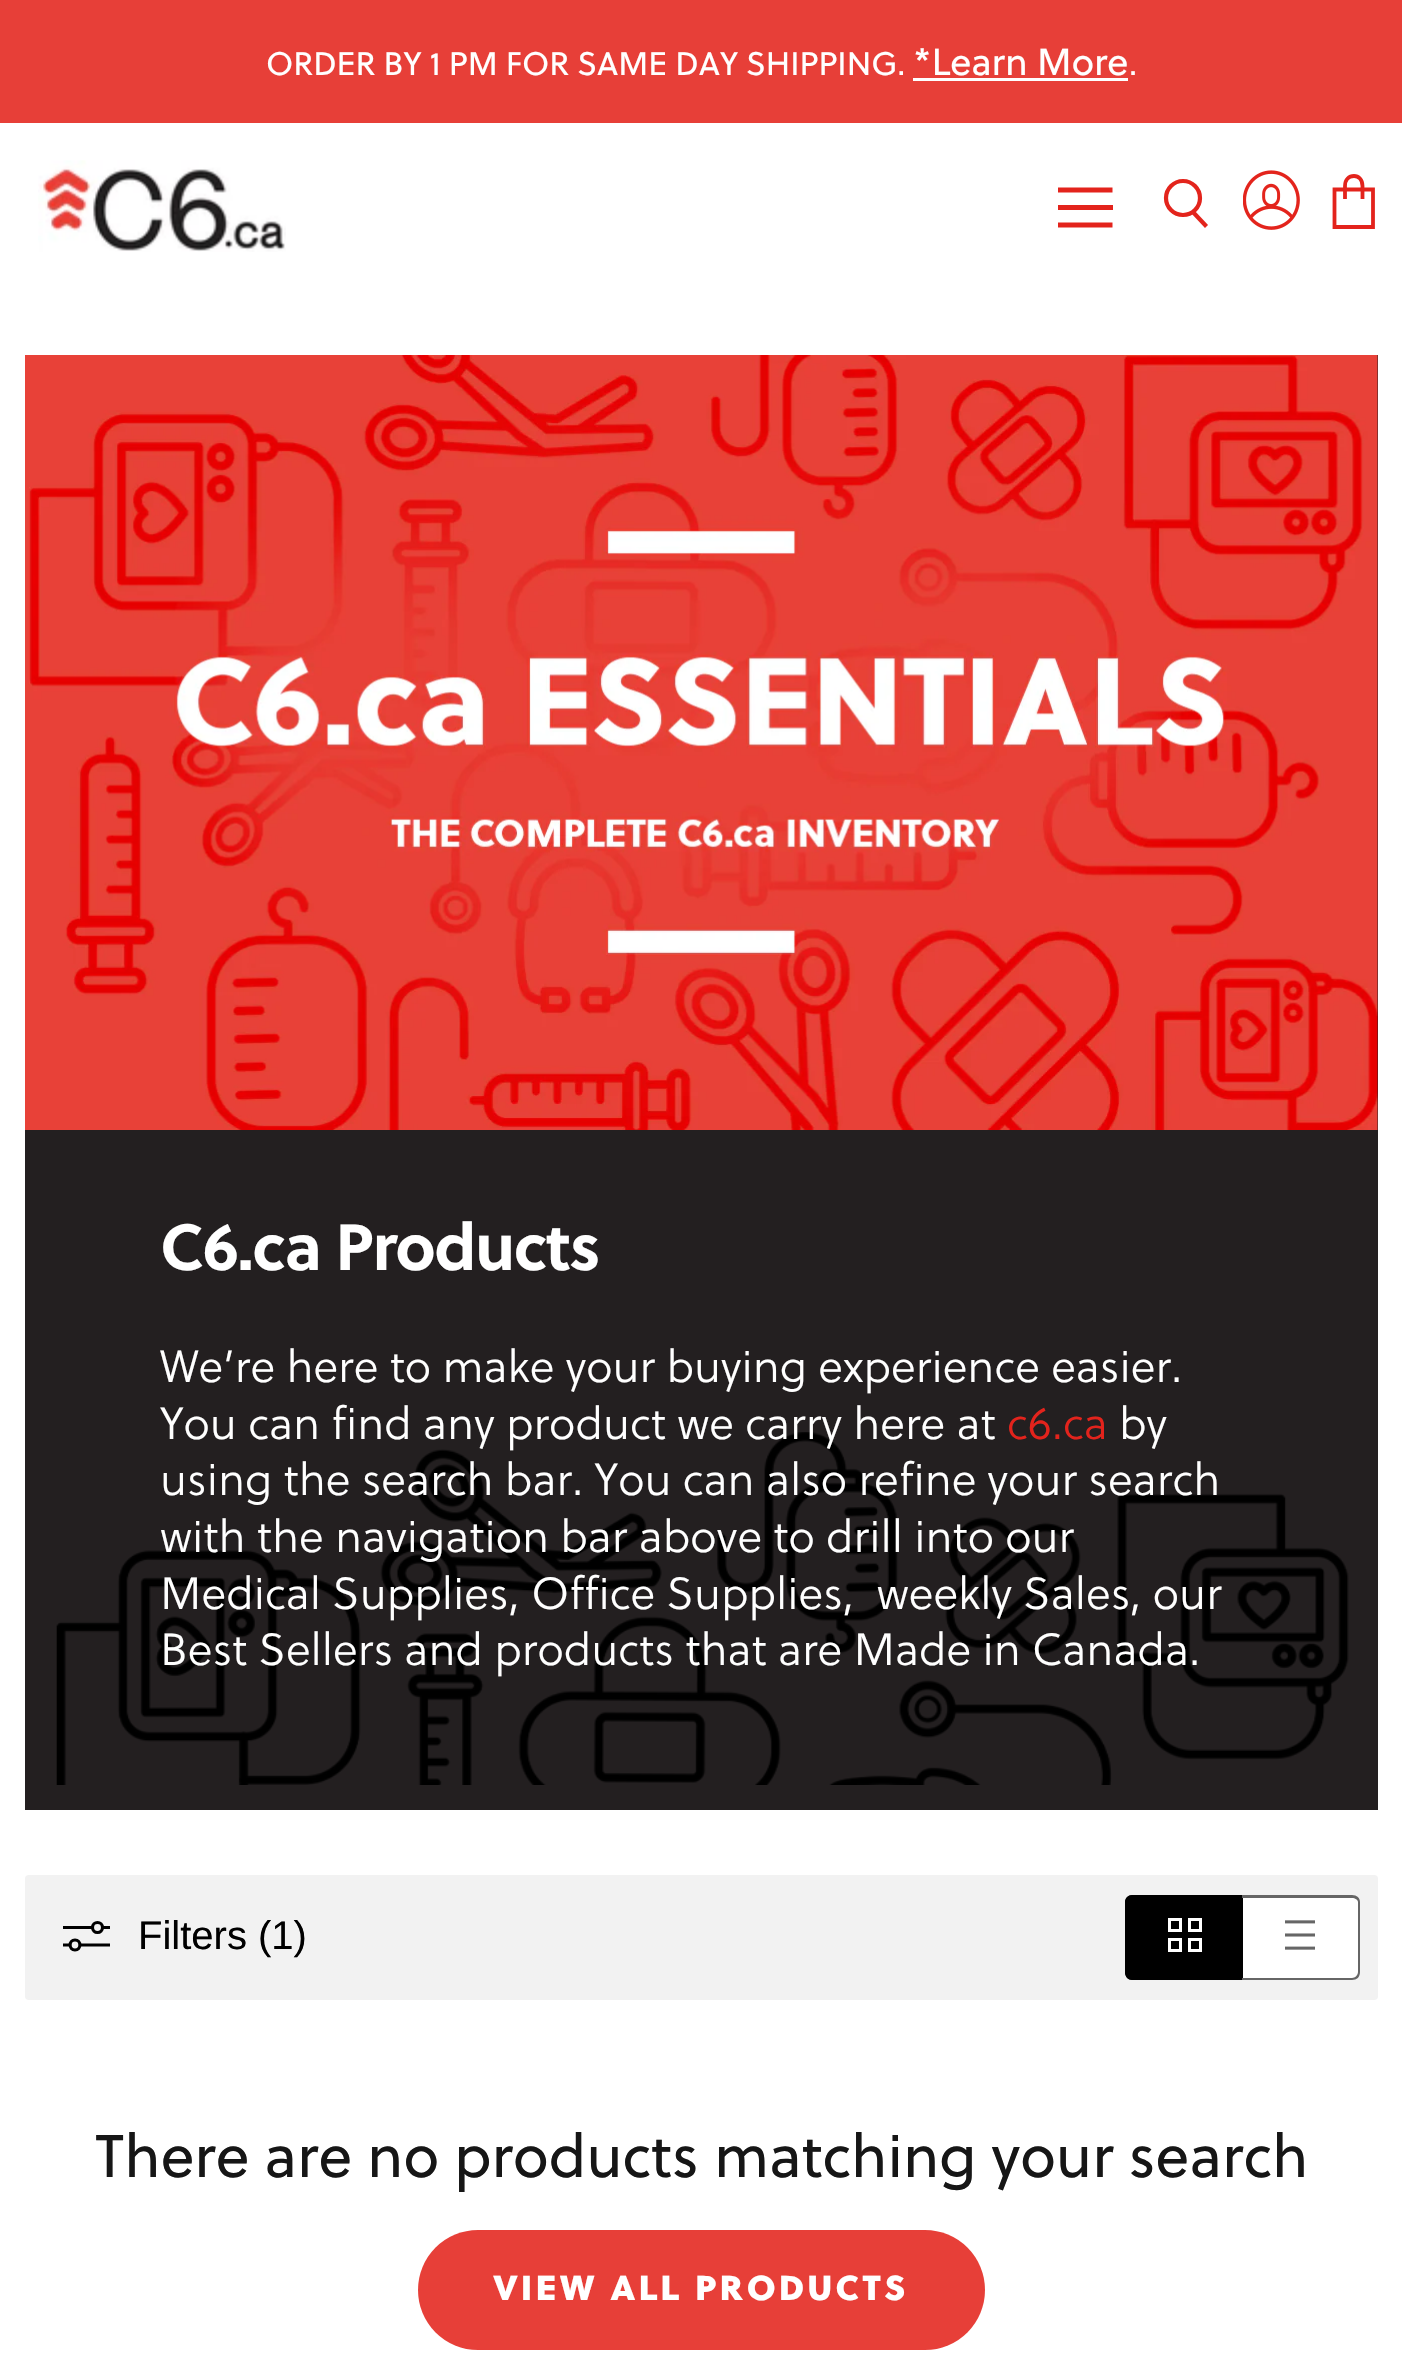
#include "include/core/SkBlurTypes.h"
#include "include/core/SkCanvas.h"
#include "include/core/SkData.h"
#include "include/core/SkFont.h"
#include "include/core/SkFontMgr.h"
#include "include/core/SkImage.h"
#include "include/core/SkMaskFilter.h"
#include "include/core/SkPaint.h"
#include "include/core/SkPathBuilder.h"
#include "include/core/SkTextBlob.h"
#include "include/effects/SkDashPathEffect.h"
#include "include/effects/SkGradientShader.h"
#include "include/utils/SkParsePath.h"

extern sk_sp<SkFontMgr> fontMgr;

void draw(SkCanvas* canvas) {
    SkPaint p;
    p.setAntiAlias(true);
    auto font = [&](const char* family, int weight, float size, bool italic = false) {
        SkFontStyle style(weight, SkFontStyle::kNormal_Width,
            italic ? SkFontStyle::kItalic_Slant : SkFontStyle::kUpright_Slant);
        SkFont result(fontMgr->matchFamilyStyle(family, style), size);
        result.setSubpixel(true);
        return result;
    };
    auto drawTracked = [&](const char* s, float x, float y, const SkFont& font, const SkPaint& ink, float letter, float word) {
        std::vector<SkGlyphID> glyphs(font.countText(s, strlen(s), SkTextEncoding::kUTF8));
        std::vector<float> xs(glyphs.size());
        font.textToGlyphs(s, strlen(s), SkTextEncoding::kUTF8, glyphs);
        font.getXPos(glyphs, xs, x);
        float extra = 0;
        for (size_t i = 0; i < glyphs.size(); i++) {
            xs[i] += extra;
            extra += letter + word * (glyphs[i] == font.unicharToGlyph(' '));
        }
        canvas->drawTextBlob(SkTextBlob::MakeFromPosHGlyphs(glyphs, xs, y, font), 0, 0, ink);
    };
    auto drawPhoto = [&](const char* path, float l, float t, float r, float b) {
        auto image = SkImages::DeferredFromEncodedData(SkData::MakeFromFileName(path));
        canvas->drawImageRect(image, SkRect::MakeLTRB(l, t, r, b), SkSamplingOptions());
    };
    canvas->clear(0xFFFFFFFF);
    p.setColor(0xFFE73F38);
    canvas->drawRect(SkRect::MakeLTRB(0, 0, 1402, 123), p);
    auto font1 = font("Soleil", 400, 32.5f);
    p.setColor(0xFFFFFFFF);
    canvas->drawString("ORDER BY 1 PM FOR SAME DAY SHIPPING.", 266, 75, font1, p);
    auto font2 = font("Soleil", 400, 37.5f);
    canvas->drawString("*Learn More", 913, 75, font2, p);
    canvas->drawRect(SkRect::MakeLTRB(913, 78, 1128, 81), p);
    canvas->drawString(".", 1129, 75, font1, p);
    drawPhoto("media/1.png", 38, 160, 286, 252);
    canvas->save();
    canvas->clipRect(SkRect::MakeLTRB(1058, 185, 1113, 230));
    p.setStyle(SkPaint::kStroke_Style);
    p.setStrokeWidth(5);
    p.setStrokeCap(SkPaint::kSquare_Cap);
    p.setStrokeJoin(SkPaint::kRound_Join);
    p.setColor(0xFFE3231C);
    canvas->drawPath(SkPathBuilder().moveTo(1110, 190).lineTo(1060, 190).detach(), p);
    canvas->restore();
    p.setStyle(SkPaint::kFill_Style);
    canvas->drawRect(SkRect::MakeLTRB(1058, 205, 1113, 210), p);
    canvas->save();
    canvas->clipRect(SkRect::MakeLTRB(1058, 185, 1113, 230));
    p.setStyle(SkPaint::kStroke_Style);
    canvas->drawPath(SkPathBuilder().moveTo(1110, 225).lineTo(1060, 225).detach(), p);
    canvas->restore();
    p.setStrokeWidth(4.2f);
    p.setStrokeCap(SkPaint::kButt_Cap);
    p.setStrokeJoin(SkPaint::kMiter_Join);
    p.setColor(0xFFE3241C);
    canvas->drawPath(SkPathBuilder().moveTo(1206.5f, 226.5f).lineTo(1192.5f, 211.5f).detach(), p);
    canvas->drawCircle(1183, 198, 17, p);
    drawPhoto("media/2.png", 1243, 170, 1300, 230);
    p.setStrokeWidth(3.8f);
    p.setColor(0xFFE3231C);
    canvas->drawPath(SkPathBuilder().moveTo(1334.5f, 189.5f).lineTo(1373, 189.5f).lineTo(1373, 227).lineTo(1334.5f, 227).close().moveTo(1362.5f, 199).lineTo(1362.5f, 186).cubicTo(1362.5f, 179.5f, 1358.5f, 176, 1354, 176).cubicTo(1349, 176, 1345, 179.5f, 1345, 186).lineTo(1345, 199).detach(), p);
    p.setStyle(SkPaint::kFill_Style);
    p.setColor(0xFF231F20);
    canvas->drawRect(SkRect::MakeLTRB(25, 355, 1378, 1810), p);
    drawPhoto("media/3.png", 25, 355, 1378, 1130);
    drawPhoto("media/4.png", 56, 1432, 1349, 1785);
    auto font3 = font("Soleil", 700, 65);
    p.setColor(0xFFFFFFFF);
    drawTracked("C6.ca Products", 160, 1270, font3, p, -1.25f, 0);
    auto font4 = font("Soleil", 300, 45);
    canvas->drawString("We’re here to make your buying experience easier.", 160, 1382, font4, p);
    canvas->drawString("You can find any product we carry here at", 160, 1439, font4, p);
    p.setColor(0xFFE3231C);
    canvas->drawString("c6.ca", 1007, 1439, font4, p);
    p.setColor(0xFFFFFFFF);
    {
        const struct { const char* s; float x, y; } items[] = {
            {"by", 1119, 1439},
            {"using the search bar. You can also refine your search", 160, 1495},
            {"with the navigation bar above to drill into our", 160, 1552},
            {"Medical Supplies, Office Supplies,  weekly Sales, our", 160, 1609},
            {"Best Sellers and products that are Made in Canada.", 160, 1665},
        };
        for (auto [s, x, y] : items) {
            canvas->drawString(s, x, y, font4, p);
        }
    }
    p.setColor(0xFFF2F2F2);
    canvas->drawRoundRect(SkRect::MakeLTRB(25, 1875, 1378, 2000), 4, 4, p);
    p.setStyle(SkPaint::kStroke_Style);
    p.setStrokeWidth(3.1f);
    p.setColor(0xFF000000);
    canvas->drawCircle(97.5f, 1927.5f, 5, p);
    canvas->save();
    canvas->clipRect(SkRect::MakeLTRB(63, 1920, 110, 1953));
    canvas->drawPath(SkPathBuilder().moveTo(62.5f, 1927.5f).lineTo(92.5f, 1927.5f).moveTo(110, 1927.5f).lineTo(102.5f, 1927.5f).detach(), p);
    canvas->restore();
    canvas->drawPath(SkPathBuilder().moveTo(75, 1940).cubicTo(68.5f, 1940, 68.5f, 1950, 75, 1950).cubicTo(81.5f, 1950, 81.5f, 1940, 75, 1940).close().detach(), p);
    canvas->save();
    canvas->clipRect(SkRect::MakeLTRB(63, 1920, 110, 1953));
    canvas->drawPath(SkPathBuilder().moveTo(110, 1945).lineTo(80, 1945).moveTo(62.5f, 1945).lineTo(70, 1945).detach(), p);
    canvas->restore();
    auto font5 = font("Liberation Sans", 400, 40);
    p.setStyle(SkPaint::kFill_Style);
    canvas->drawString("Filters (1)", 138, 1949, font5, p);
    canvas->drawPath(SkPathBuilder().moveTo(1133, 1895).lineTo(1243, 1895).lineTo(1243, 1980).lineTo(1133, 1980).cubicTo(1128.5f, 1980, 1125, 1976.5f, 1125, 1972).lineTo(1125, 1903).cubicTo(1125, 1898.5f, 1128.5f, 1895, 1133, 1895).close().detach(), p);
    canvas->drawPath(SkPathBuilder(SkPathFillType::kEvenOdd).moveTo(1132, 1895).lineTo(1242, 1895).lineTo(1242, 1980).lineTo(1132, 1980).cubicTo(1128, 1980, 1125, 1977, 1125, 1972).lineTo(1125, 1902).cubicTo(1125, 1898, 1128, 1895, 1132, 1895).close().moveTo(1132, 1898).lineTo(1242, 1898).lineTo(1242, 1978).lineTo(1132, 1978).cubicTo(1130, 1978, 1128, 1975, 1128, 1972).lineTo(1128, 1902).cubicTo(1128, 1900, 1130, 1898, 1132, 1898).close().detach(), p);
    drawPhoto("media/5.png", 1168, 1918, 1202, 1952);
    p.setColor(0xFFFFFFFF);
    canvas->drawPath(SkPathBuilder().moveTo(1243, 1895).lineTo(1352, 1895).cubicTo(1356.5f, 1895, 1360, 1898.5f, 1360, 1903).lineTo(1360, 1972).cubicTo(1360, 1976.5f, 1356.5f, 1980, 1352, 1980).lineTo(1243, 1980).close().detach(), p);
    p.setColor(0xFF666666);
    canvas->drawPath(SkPathBuilder(SkPathFillType::kEvenOdd).moveTo(1242, 1895).lineTo(1352, 1895).cubicTo(1357, 1895, 1360, 1898, 1360, 1902).lineTo(1360, 1972).cubicTo(1360, 1977, 1357, 1980, 1352, 1980).lineTo(1242, 1980).close().moveTo(1242, 1898).lineTo(1352, 1898).cubicTo(1355, 1898, 1358, 1900, 1358, 1902).lineTo(1358, 1972).cubicTo(1358, 1975, 1355, 1978, 1352, 1978).lineTo(1242, 1978).close().detach(), p);
    drawPhoto("media/6.png", 1285, 1920, 1315, 1950);
    auto font6 = font("Soleil", 400, 60);
    p.setColor(0xFF161616);
    canvas->drawString("There are no products matching your search", 95, 2177, font6, p);
    p.setColor(0xFFE73F38);
    canvas->drawRoundRect(SkRect::MakeLTRB(418, 2230, 985, 2350), 60, 60, p);
    auto font7 = font("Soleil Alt", 800, 40);
    p.setColor(0xFFFFFFFF);
    drawTracked("view all products", 493, 2300, font7, p, 2.75f, 0);
}
